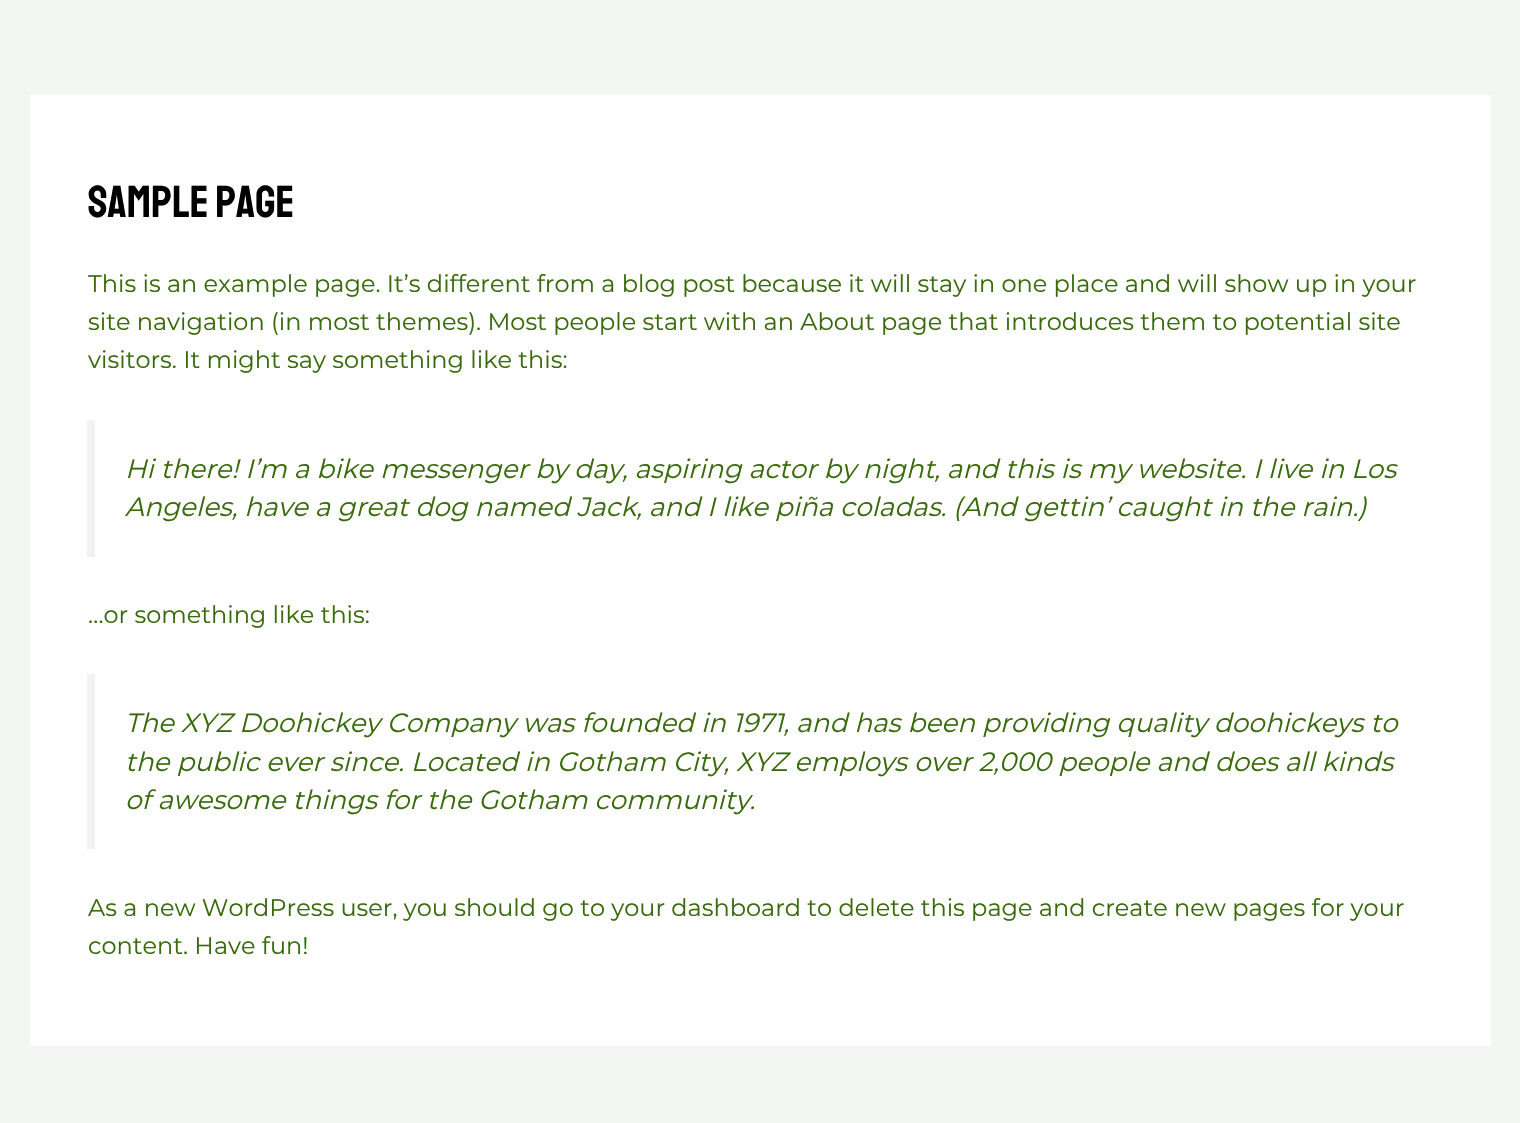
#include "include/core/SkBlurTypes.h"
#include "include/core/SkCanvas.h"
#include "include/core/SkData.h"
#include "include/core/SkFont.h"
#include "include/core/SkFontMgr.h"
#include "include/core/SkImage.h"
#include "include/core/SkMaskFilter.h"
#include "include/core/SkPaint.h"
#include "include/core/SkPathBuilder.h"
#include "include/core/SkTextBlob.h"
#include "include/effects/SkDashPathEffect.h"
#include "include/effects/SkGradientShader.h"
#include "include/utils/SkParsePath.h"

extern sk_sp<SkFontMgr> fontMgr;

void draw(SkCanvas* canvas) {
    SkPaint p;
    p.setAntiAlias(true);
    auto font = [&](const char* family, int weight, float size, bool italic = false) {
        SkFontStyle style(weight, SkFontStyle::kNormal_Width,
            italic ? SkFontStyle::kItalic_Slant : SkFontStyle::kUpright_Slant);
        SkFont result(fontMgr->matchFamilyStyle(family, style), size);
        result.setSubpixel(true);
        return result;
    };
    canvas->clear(0xFFF4F6F4);
    p.setColor(0xFFFFFFFF);
    canvas->drawRect(SkRect::MakeLTRB(30, 95, 1491, 1046), p);
    auto font1 = font("Staatliches", 400, 45);
    p.setColor(0xFF000000);
    canvas->drawString("Sample Page", 88, 217, font1, p);
    auto font2 = font("Montserrat", 400, 24);
    p.setColor(0xFF38690A);
    {
        const struct { const char* s; float x, y; } items[] = {
            {"This is an example page. It’s different from a blog post because it will stay in one place and will show up in your", 88, 292},
            {"site navigation (in most themes). Most people start with an About page that introduces them to potential site", 88, 330},
            {"visitors. It might say something like this:", 88, 368},
        };
        for (auto [s, x, y] : items) {
            canvas->drawString(s, x, y, font2, p);
        }
    }
    p.setColor(0xFFF2F2F2);
    canvas->drawRect(SkRect::MakeLTRB(87, 420, 95, 557), p);
    auto font3 = font("Montserrat", 400, 26.4f, true);
    p.setColor(0xFF38690A);
    canvas->drawString("Hi there! I’m a bike messenger by day, aspiring actor by night, and this is my website. I live in Los", 125, 478, font3, p);
    canvas->drawString("Angeles, have a great dog named Jack, and I like piña coladas. (And gettin’ caught in the rain.)", 125, 516, font3, p);
    canvas->drawString("…or something like this:", 88, 623, font2, p);
    p.setColor(0xFFF2F2F2);
    canvas->drawRect(SkRect::MakeLTRB(87, 674, 95, 849), p);
    p.setColor(0xFF38690A);
    {
        const struct { const char* s; float x, y; } items[] = {
            {"The XYZ Doohickey Company was founded in 1971, and has been providing quality doohickeys to", 125, 732},
            {"the public ever since. Located in Gotham City, XYZ employs over 2,000 people and does all kinds", 125, 771},
            {"of awesome things for the Gotham community.", 125, 809},
        };
        for (auto [s, x, y] : items) {
            canvas->drawString(s, x, y, font3, p);
        }
    }
    canvas->drawString("As a new WordPress user, you should go to your dashboard to delete this page and create new pages for your", 88, 916, font2, p);
    canvas->drawString("content. Have fun!", 88, 954, font2, p);
}
